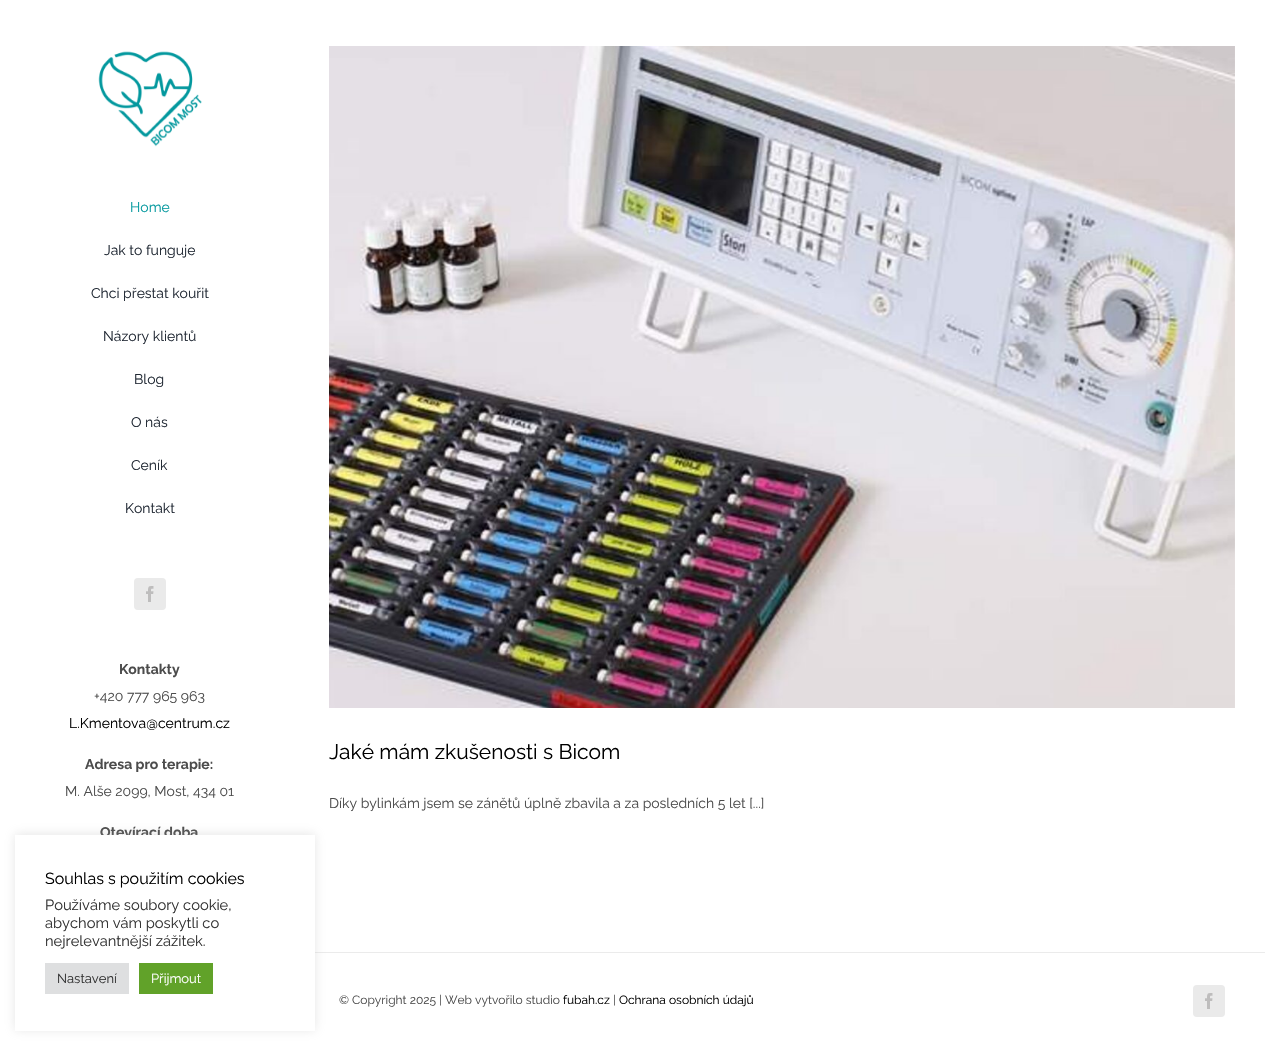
#include "include/core/SkBlurTypes.h"
#include "include/core/SkCanvas.h"
#include "include/core/SkData.h"
#include "include/core/SkFont.h"
#include "include/core/SkFontMgr.h"
#include "include/core/SkImage.h"
#include "include/core/SkMaskFilter.h"
#include "include/core/SkPaint.h"
#include "include/core/SkPathBuilder.h"
#include "include/core/SkTextBlob.h"
#include "include/effects/SkDashPathEffect.h"
#include "include/effects/SkGradientShader.h"
#include "include/utils/SkParsePath.h"

extern sk_sp<SkFontMgr> fontMgr;

void draw(SkCanvas* canvas) {
    SkPaint p;
    p.setAntiAlias(true);
    auto font = [&](const char* family, int weight, float size, bool italic = false) {
        SkFontStyle style(weight, SkFontStyle::kNormal_Width,
            italic ? SkFontStyle::kItalic_Slant : SkFontStyle::kUpright_Slant);
        SkFont result(fontMgr->matchFamilyStyle(family, style), size);
        result.setSubpixel(true);
        return result;
    };
    auto drawPhoto = [&](const char* path, float l, float t, float r, float b) {
        auto image = SkImages::DeferredFromEncodedData(SkData::MakeFromFileName(path));
        canvas->drawImageRect(image, SkRect::MakeLTRB(l, t, r, b), SkSamplingOptions());
    };
    canvas->clear(0xFFFFFFFF);
    drawPhoto("media/1.png", 98, 51, 202, 147);
    auto font1 = font("Raleway", 400, 14);
    p.setColor(0xFF03989E);
    canvas->drawString("Home", 130, 212, font1, p);
    p.setColor(0xFF212934);
    {
        const struct { const char* s; float x, y; } items[] = {
            {"Jak to funguje", 104, 255},
            {"Chci přestat kouřit", 91, 298},
            {"Názory klientů", 103, 341},
            {"Blog", 134, 384},
            {"O nás", 131, 427},
            {"Ceník", 131, 470},
            {"Kontakt", 125, 513},
        };
        for (auto [s, x, y] : items) {
            canvas->drawString(s, x, y, font1, p);
        }
    }
    p.setColor(0xFFEAEAEA);
    canvas->drawRoundRect(SkRect::MakeLTRB(134, 578, 166, 610), 4, 4, p);
    drawPhoto("media/2.png", 146, 586, 154, 602);
    auto font2 = font("Raleway", 700, 14);
    p.setColor(0xFF4C4C4C);
    canvas->drawString("Kontakty", 119, 674, font2, p);
    canvas->drawString("+420 777 965 963", 94, 701, font1, p);
    p.setColor(0xFF000000);
    canvas->drawString("L.Kmentova@centrum.cz", 69, 728, font1, p);
    p.setColor(0xFF4C4C4C);
    canvas->drawString("Adresa pro terapie:", 85, 769, font2, p);
    canvas->drawString("M. Alše 2099, Most, 434 01", 65, 796, font1, p);
    canvas->drawString("Otevírací doba", 100, 837, font2, p);
    drawPhoto("media/3.png", 329, 46, 1235, 708);
    auto font3 = font("Raleway", 400, 21);
    p.setColor(0xFF000000);
    canvas->drawString("Jaké mám zkušenosti s Bicom", 329, 759, font3, p);
    p.setColor(0xFF4C4C4C);
    canvas->drawString("Díky bylinkám jsem se zánětů úplně zbavila a za posledních 5 let [...]", 329, 808, font1, p);
    p.setColor(0xFFEBEBEB);
    canvas->drawRect(SkRect::MakeLTRB(315, 952, 1265, 953), p);
    auto font4 = font("Raleway", 400, 12);
    p.setColor(0xFF4C4C4C);
    canvas->drawString("© Copyright 2025 | Web vytvořilo studio", 339, 1004, font4, p);
    p.setColor(0xFF000000);
    canvas->drawString("fubah.cz", 563, 1004, font4, p);
    p.setColor(0xFF4C4C4C);
    canvas->drawString("|", 613, 1004, font4, p);
    p.setColor(0xFF000000);
    canvas->drawString("Ochrana osobních údajů", 619, 1004, font4, p);
    p.setColor(0xFFEAEAEA);
    canvas->drawRoundRect(SkRect::MakeLTRB(1193, 985, 1225, 1017), 4, 4, p);
    drawPhoto("media/2.png", 1205, 993, 1213, 1009);
    p.setColor(0x4DACABAB);
    p.setMaskFilter(SkMaskFilter::MakeBlur(kNormal_SkBlurStyle, 5));
    canvas->drawRect(SkRect::MakeLTRB(15, 834, 315, 1030), p);
    p.setMaskFilter(nullptr);
    p.setColor(0xFFFFFFFF);
    canvas->drawRect(SkRect::MakeLTRB(15, 835, 315, 1031), p);
    auto font5 = font("Raleway", 400, 16);
    p.setColor(0xFF000000);
    canvas->drawString("Souhlas s použitím cookies", 45, 884, font5, p);
    auto font6 = font("Raleway", 400, 14.7f);
    p.setColor(0xFF333333);
    {
        const struct { const char* s; float x, y; } items[] = {
            {"Používáme soubory cookie,", 45, 910},
            {"abychom vám poskytli co", 45, 928},
            {"nejrelevantnější zážitek.", 45, 946},
        };
        for (auto [s, x, y] : items) {
            canvas->drawString(s, x, y, font6, p);
        }
    }
    p.setColor(0xFFDEDFE0);
    canvas->drawRect(SkRect::MakeLTRB(45, 963, 129, 994), p);
    auto font7 = font("Raleway", 400, 13);
    p.setColor(0xFF333333);
    canvas->drawString("Nastavení", 57, 983, font7, p);
    p.setColor(0xFF61A229);
    canvas->drawRect(SkRect::MakeLTRB(139, 963, 213, 994), p);
    p.setColor(0xFFFFFFFF);
    canvas->drawString("Přijmout", 151, 983, font7, p);
}
